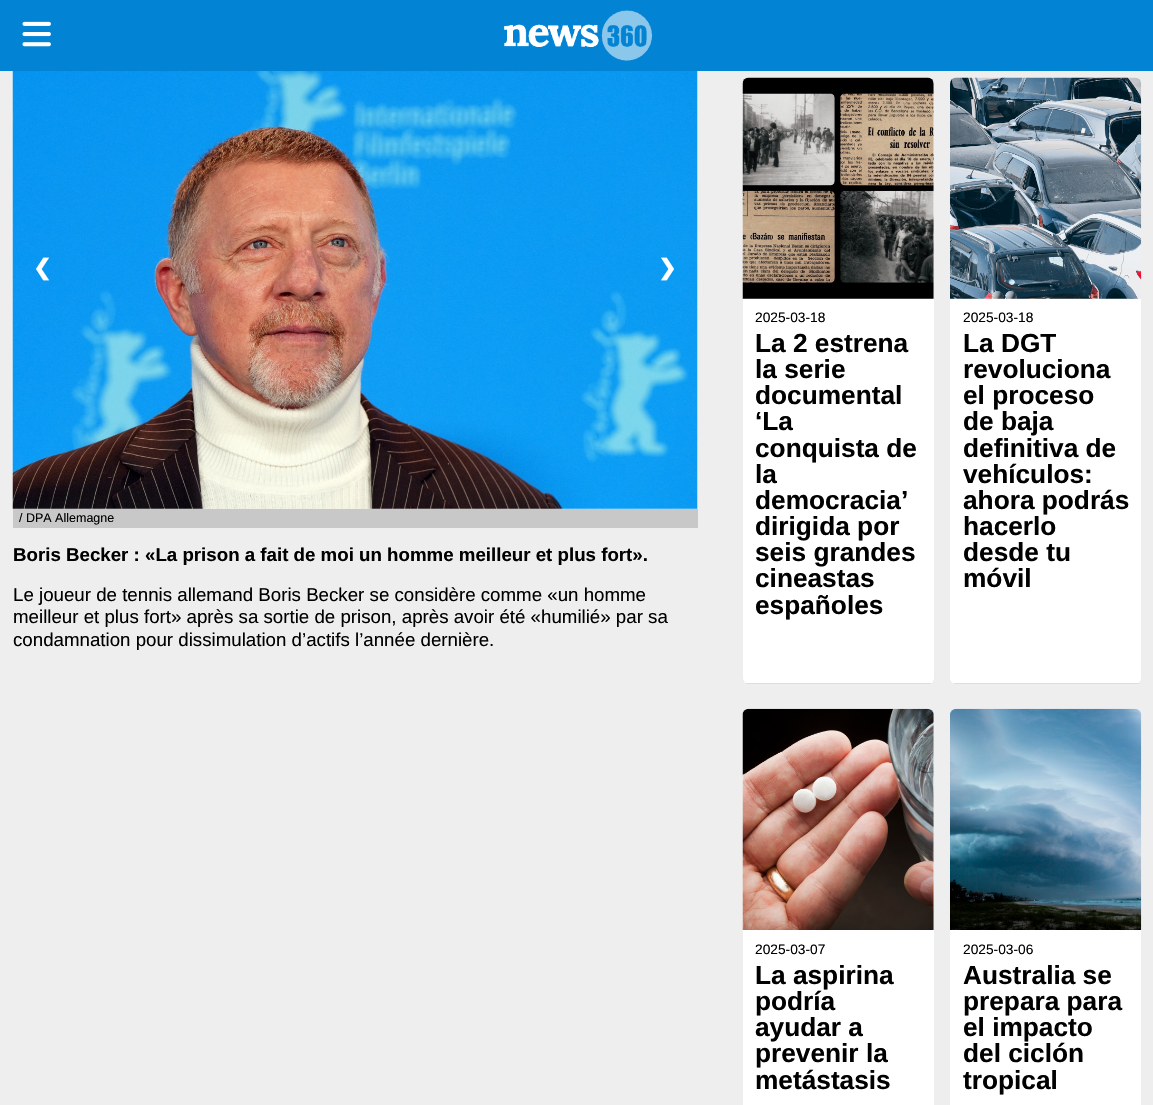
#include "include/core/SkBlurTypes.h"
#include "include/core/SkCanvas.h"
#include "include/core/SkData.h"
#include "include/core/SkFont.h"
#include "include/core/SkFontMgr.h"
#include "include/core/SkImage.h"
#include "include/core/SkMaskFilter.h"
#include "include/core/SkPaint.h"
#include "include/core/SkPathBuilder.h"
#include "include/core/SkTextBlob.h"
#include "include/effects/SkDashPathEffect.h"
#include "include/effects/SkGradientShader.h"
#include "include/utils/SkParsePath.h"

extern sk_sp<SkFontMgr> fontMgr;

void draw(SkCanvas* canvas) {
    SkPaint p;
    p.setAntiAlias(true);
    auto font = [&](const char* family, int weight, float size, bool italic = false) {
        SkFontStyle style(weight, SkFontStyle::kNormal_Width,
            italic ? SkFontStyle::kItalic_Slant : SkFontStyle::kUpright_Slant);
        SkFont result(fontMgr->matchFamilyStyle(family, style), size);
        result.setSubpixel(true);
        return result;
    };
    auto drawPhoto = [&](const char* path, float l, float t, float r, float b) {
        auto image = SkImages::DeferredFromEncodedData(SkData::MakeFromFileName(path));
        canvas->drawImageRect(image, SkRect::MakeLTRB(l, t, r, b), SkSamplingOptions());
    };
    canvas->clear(0xFFEEEEEE);
    p.setColor(0xFF0283D4);
    canvas->drawRect(SkRect::MakeLTRB(0, 0, 1153, 71), p);
    drawPhoto("media/1.png", 22, 21, 51, 47);
    drawPhoto("media/2.png", 503, 10, 653, 61);
    drawPhoto("media/3.png", 12, 71, 698, 509);
    auto font1 = font("DejaVu Sans", 700, 22);
    p.setColor(0xFFFFFFFF);
    canvas->drawString("❮", 33, 275, font1, p);
    canvas->drawString("❯", 658, 275, font1, p);
    p.setColor(0xFFC9C8C8);
    canvas->drawRect(SkRect::MakeLTRB(13, 509, 698, 528), p);
    auto font2 = font("Liberation Sans", 400, 12.5f);
    p.setColor(0xFF000000);
    canvas->drawString("/ DPA Allemagne", 19, 522, font2, p);
    auto font3 = font("Liberation Sans", 700, 18.7f);
    canvas->drawString("Boris Becker : «La prison a fait de moi un homme meilleur et plus fort».", 13, 561, font3, p);
    auto font4 = font("Liberation Sans", 400, 18.7f);
    {
        const struct { const char* s; float x, y; } items[] = {
            {"Le joueur de tennis allemand Boris Becker se considère comme «un homme", 13, 601},
            {"meilleur et plus fort» après sa sortie de prison, après avoir été «humilié» par sa", 13, 623},
            {"condamnation pour dissimulation d’actifs l’année dernière.", 13, 646},
        };
        for (auto [s, x, y] : items) {
            canvas->drawString(s, x, y, font4, p);
        }
    }
    p.setColor(0xFFFFFFFF);
    canvas->drawRoundRect(SkRect::MakeLTRB(743, 78, 934, 684), 6, 6, p);
    p.setColor(0xFFDDDDDD);
    canvas->drawRect(SkRect::MakeLTRB(746, 683, 931, 684), p);
    p.setColor(0xFFFFFFFF);
    canvas->drawPath(SkPathBuilder().moveTo(743, 81).cubicTo(744, 80, 745, 79, 746, 78).lineTo(930, 78).cubicTo(932, 79, 934, 81, 934, 84).lineTo(934, 299).lineTo(743, 299).close().detach(), p);
    drawPhoto("media/4.png", 742, 77, 934, 299);
    auto font5 = font("Liberation Sans", 400, 13.75f);
    p.setColor(0xFF000000);
    canvas->drawString("2025-03-18", 755, 322, font5, p);
    auto font6 = font("Liberation Sans", 700, 26.25f);
    {
        const struct { const char* s; float x, y; } items[] = {
            {"La 2 estrena", 755, 352},
            {"la serie", 755, 378},
            {"documental", 755, 404},
            {"‘La", 755, 430},
            {"conquista de", 755, 457},
            {"la", 755, 483},
            {"democracia’", 755, 509},
            {"dirigida por", 755, 535},
            {"seis grandes", 755, 561},
            {"cineastas", 755, 587},
            {"españoles", 755, 614},
        };
        for (auto [s, x, y] : items) {
            canvas->drawString(s, x, y, font6, p);
        }
    }
    p.setColor(0xFFFFFFFF);
    canvas->drawRoundRect(SkRect::MakeLTRB(950, 78, 1141, 684), 6, 6, p);
    p.setColor(0xFFDDDDDD);
    canvas->drawRect(SkRect::MakeLTRB(954, 683, 1139, 684), p);
    drawPhoto("media/5.png", 950, 77, 1142, 299);
    p.setColor(0xFF000000);
    canvas->drawString("2025-03-18", 963, 322, font5, p);
    {
        const struct { const char* s; float x, y; } items[] = {
            {"La DGT", 963, 352},
            {"revoluciona", 963, 378},
            {"el proceso", 963, 404},
            {"de baja", 963, 430},
            {"definitiva de", 963, 457},
            {"vehículos:", 963, 483},
            {"ahora podrás", 963, 509},
            {"hacerlo", 963, 535},
            {"desde tu", 963, 561},
            {"móvil", 963, 587},
        };
        for (auto [s, x, y] : items) {
            canvas->drawString(s, x, y, font6, p);
        }
    }
    p.setColor(0xFFFFFFFF);
    canvas->drawRoundRect(SkRect::MakeLTRB(743, 709, 934, 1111), 6, 6, p);
    canvas->drawPath(SkPathBuilder().moveTo(743, 713).cubicTo(744, 711, 745, 710, 747, 709).lineTo(929, 709).cubicTo(932, 710, 934, 712, 934, 715).lineTo(934, 930).lineTo(743, 930).close().detach(), p);
    drawPhoto("media/6.png", 742, 708, 934, 930);
    p.setColor(0xFF000000);
    canvas->drawString("2025-03-07", 755, 954, font5, p);
    {
        const struct { const char* s; float x, y; } items[] = {
            {"La aspirina", 755, 984},
            {"podría", 755, 1010},
            {"ayudar a", 755, 1036},
            {"prevenir la", 755, 1062},
            {"metástasis", 755, 1089},
        };
        for (auto [s, x, y] : items) {
            canvas->drawString(s, x, y, font6, p);
        }
    }
    p.setColor(0xFFFFFFFF);
    canvas->drawRoundRect(SkRect::MakeLTRB(950, 709, 1141, 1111), 6, 6, p);
    canvas->drawPath(SkPathBuilder().moveTo(950, 715).lineTo(950, 930).lineTo(1141, 930).lineTo(1141, 713).cubicTo(1140, 711, 1139, 710, 1137, 709).lineTo(954, 709).cubicTo(952, 710, 950, 712, 950, 715).close().detach(), p);
    drawPhoto("media/7.png", 950, 708, 1142, 930);
    p.setColor(0xFF000000);
    canvas->drawString("2025-03-06", 963, 954, font5, p);
    {
        const struct { const char* s; float x, y; } items[] = {
            {"Australia se", 963, 984},
            {"prepara para", 963, 1010},
            {"el impacto", 963, 1036},
            {"del ciclón", 963, 1062},
            {"tropical", 963, 1089},
        };
        for (auto [s, x, y] : items) {
            canvas->drawString(s, x, y, font6, p);
        }
    }
}
